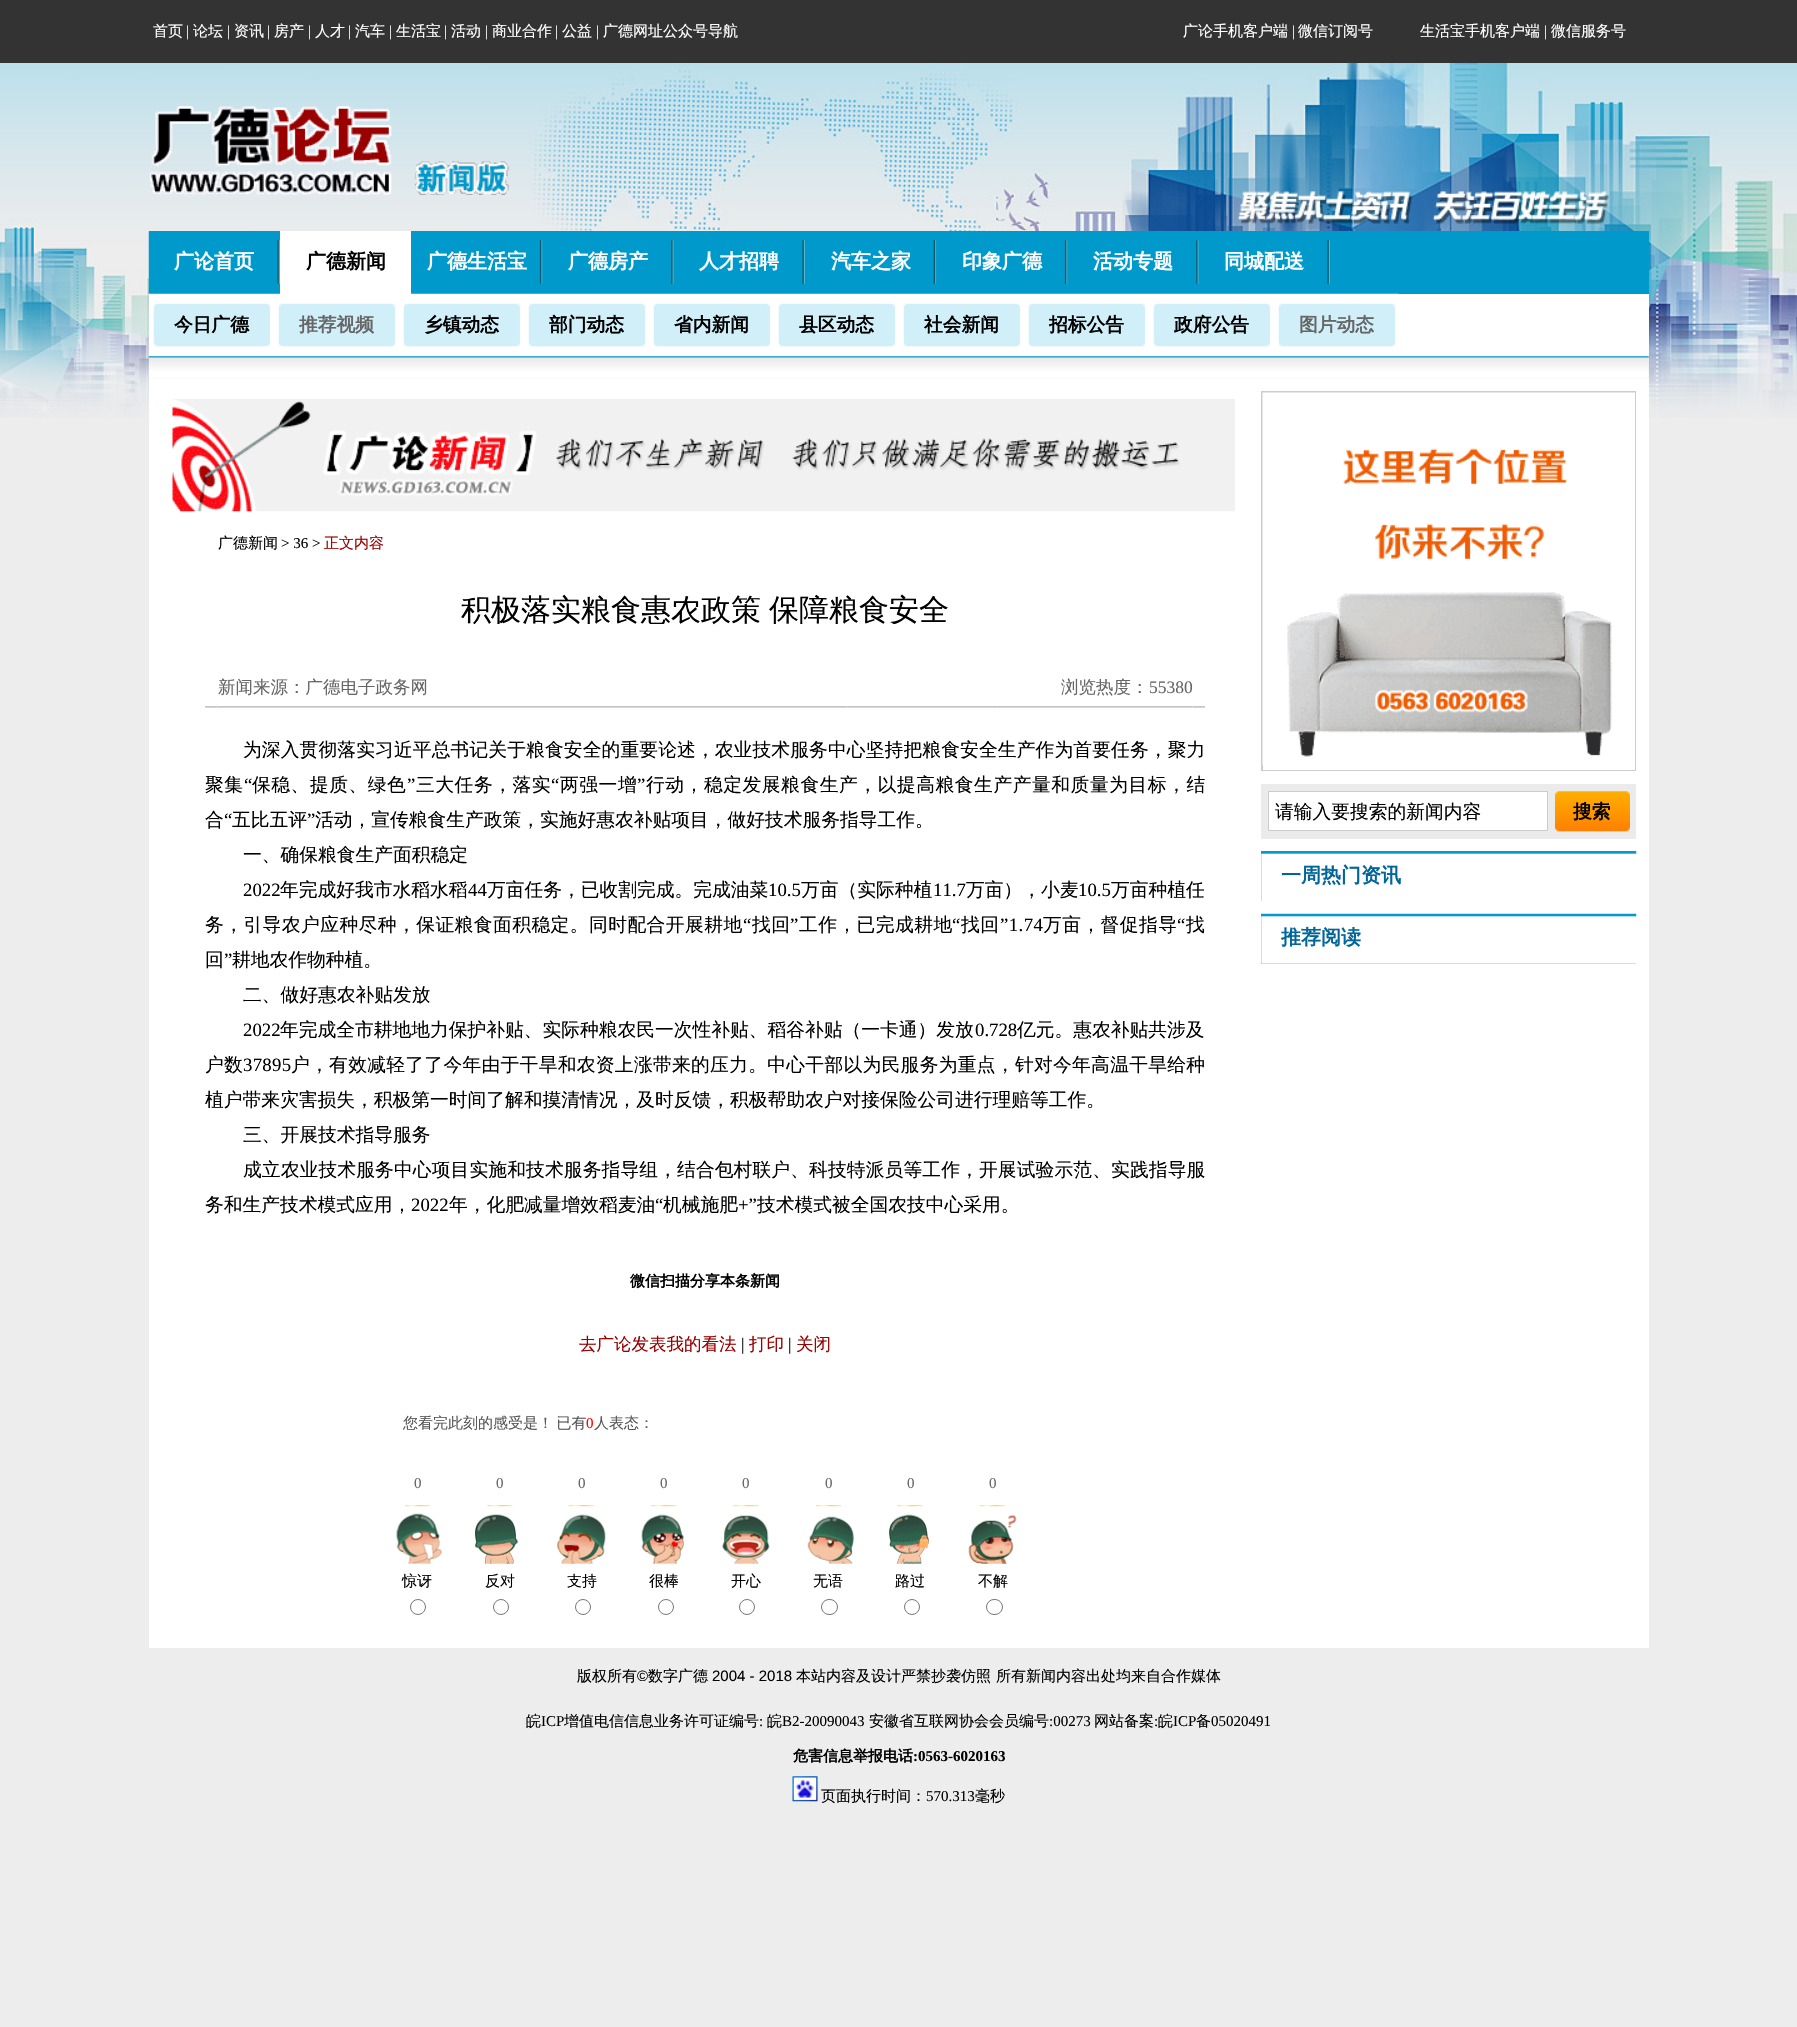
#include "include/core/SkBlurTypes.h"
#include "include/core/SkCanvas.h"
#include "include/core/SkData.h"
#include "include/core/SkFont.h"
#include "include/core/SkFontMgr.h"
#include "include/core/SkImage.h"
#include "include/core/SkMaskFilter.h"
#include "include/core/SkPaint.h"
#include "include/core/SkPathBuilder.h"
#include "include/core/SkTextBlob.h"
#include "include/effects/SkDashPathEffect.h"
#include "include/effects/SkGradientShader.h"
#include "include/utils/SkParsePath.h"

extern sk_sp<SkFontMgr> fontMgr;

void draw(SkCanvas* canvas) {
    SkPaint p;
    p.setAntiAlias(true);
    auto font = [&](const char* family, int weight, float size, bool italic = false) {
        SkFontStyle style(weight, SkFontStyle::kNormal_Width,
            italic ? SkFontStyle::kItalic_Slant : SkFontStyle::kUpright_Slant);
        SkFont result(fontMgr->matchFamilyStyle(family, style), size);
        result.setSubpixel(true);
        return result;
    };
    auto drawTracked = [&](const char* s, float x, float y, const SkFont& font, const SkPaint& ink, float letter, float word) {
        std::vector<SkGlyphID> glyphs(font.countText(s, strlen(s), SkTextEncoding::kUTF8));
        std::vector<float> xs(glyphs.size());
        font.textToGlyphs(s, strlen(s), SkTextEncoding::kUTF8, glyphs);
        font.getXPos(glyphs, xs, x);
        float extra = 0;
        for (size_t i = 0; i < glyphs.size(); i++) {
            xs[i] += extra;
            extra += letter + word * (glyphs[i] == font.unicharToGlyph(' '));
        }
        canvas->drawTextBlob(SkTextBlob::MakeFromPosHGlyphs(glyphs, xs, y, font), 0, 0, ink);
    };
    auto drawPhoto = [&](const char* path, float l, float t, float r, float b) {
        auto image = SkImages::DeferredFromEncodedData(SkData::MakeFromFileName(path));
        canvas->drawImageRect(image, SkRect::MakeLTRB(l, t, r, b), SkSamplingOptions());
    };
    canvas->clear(0xFFEDEDED);
    drawPhoto("media/1.png", 0, 63, 1797, 418);
    p.setColor(0xFF333333);
    canvas->drawRect(SkRect::MakeLTRB(0, 0, 1797, 63), p);
    auto font1 = font("WenQuanYi Zen Hei", 500, 15);
    p.setColor(0xFFFFFFFF);
    canvas->drawString("首页", 153, 36, font1, p);
    auto font2 = font("Liberation Serif", 400, 15);
    canvas->drawString("|", 186, 36, font2, p);
    canvas->drawString("论坛", 193, 36, font1, p);
    canvas->drawString("|", 227, 36, font2, p);
    canvas->drawString("资讯", 234, 36, font1, p);
    canvas->drawString("|", 267, 36, font2, p);
    canvas->drawString("房产", 274, 36, font1, p);
    canvas->drawString("|", 308, 36, font2, p);
    canvas->drawString("人才", 315, 36, font1, p);
    canvas->drawString("|", 348, 36, font2, p);
    canvas->drawString("汽车", 355, 36, font1, p);
    canvas->drawString("|", 389, 36, font2, p);
    canvas->drawString("生活宝", 396, 36, font1, p);
    canvas->drawString("|", 444, 36, font2, p);
    canvas->drawString("活动", 451, 36, font1, p);
    canvas->drawString("|", 485, 36, font2, p);
    canvas->drawString("商业合作", 492, 36, font1, p);
    canvas->drawString("|", 555, 36, font2, p);
    canvas->drawString("公益", 562, 36, font1, p);
    canvas->drawString("|", 596, 36, font2, p);
    canvas->drawString("广德网址公众号导航", 603, 36, font1, p);
    canvas->drawString("广论手机客户端", 1183, 36, font1, p);
    canvas->drawString("|", 1292, 36, font2, p);
    canvas->drawString("微信订阅号", 1298, 36, font1, p);
    canvas->drawString("生活宝手机客户端", 1420, 36, font1, p);
    canvas->drawString("|", 1544, 36, font2, p);
    canvas->drawString("微信服务号", 1551, 36, font1, p);
    drawPhoto("media/2.png", 149, 106, 509, 195);
    p.setColor(0xFF0099CC);
    canvas->drawRect(SkRect::MakeLTRB(149, 231, 1649, 294), p);
    drawPhoto("media/3.png", 148, 231, 280, 294);
    auto font3 = font("WenQuanYi Zen Hei", 700, 20);
    p.setColor(0xFFFFFFFF);
    canvas->drawString("广论首页", 174, 268, font3, p);
    canvas->drawRect(SkRect::MakeLTRB(280, 231, 411, 294), p);
    p.setColor(0xFF000000);
    canvas->drawString("广德新闻", 306, 268, font3, p);
    drawPhoto("media/4.png", 539, 239, 543, 284);
    p.setColor(0xFFFFFFFF);
    canvas->drawString("广德生活宝", 427, 268, font3, p);
    drawPhoto("media/5.png", 542, 239, 674, 284);
    canvas->drawString("广德房产", 568, 268, font3, p);
    drawPhoto("media/6.png", 673, 239, 805, 284);
    canvas->drawString("人才招聘", 699, 268, font3, p);
    drawPhoto("media/7.png", 933, 239, 937, 284);
    canvas->drawString("汽车之家", 831, 268, font3, p);
    drawPhoto("media/8.png", 936, 239, 1068, 284);
    canvas->drawString("印象广德", 962, 268, font3, p);
    drawPhoto("media/5.png", 1067, 239, 1199, 284);
    canvas->drawString("活动专题", 1093, 268, font3, p);
    drawPhoto("media/6.png", 1198, 239, 1330, 284);
    canvas->drawString("同城配送", 1224, 268, font3, p);
    canvas->drawRect(SkRect::MakeLTRB(273, 294, 1649, 356), p);
    drawPhoto("media/9.png", 148, 293, 274, 357);
    auto font4 = font("WenQuanYi Zen Hei", 700, 18.75f);
    p.setColor(0xFF000000);
    canvas->drawString("今日广德", 174, 331, font4, p);
    drawPhoto("media/10.png", 273, 293, 399, 356);
    p.setColor(0xFF666666);
    canvas->drawString("推荐视频", 299, 331, font4, p);
    drawPhoto("media/11.png", 398, 293, 524, 356);
    p.setColor(0xFF000000);
    canvas->drawString("乡镇动态", 424, 331, font4, p);
    drawPhoto("media/12.png", 523, 293, 649, 356);
    canvas->drawString("部门动态", 549, 331, font4, p);
    drawPhoto("media/13.png", 648, 293, 774, 356);
    canvas->drawString("省内新闻", 674, 331, font4, p);
    drawPhoto("media/12.png", 773, 293, 899, 356);
    canvas->drawString("县区动态", 799, 331, font4, p);
    drawPhoto("media/12.png", 898, 293, 1024, 356);
    canvas->drawString("社会新闻", 924, 331, font4, p);
    drawPhoto("media/13.png", 1023, 293, 1149, 356);
    canvas->drawString("招标公告", 1049, 331, font4, p);
    drawPhoto("media/14.png", 1148, 293, 1274, 356);
    canvas->drawString("政府公告", 1174, 331, font4, p);
    drawPhoto("media/13.png", 1273, 293, 1399, 356);
    p.setColor(0xFF666666);
    canvas->drawString("图片动态", 1299, 331, font4, p);
    p.setColor(0xFFEBEBEB);
    canvas->drawRect(SkRect::MakeLTRB(149, 356, 1649, 379), p);
    drawPhoto("media/15.png", 148, 356, 1649, 379);
    p.setColor(0xFFFFFFFF);
    canvas->drawRect(SkRect::MakeLTRB(149, 379, 1649, 1648), p);
    drawPhoto("media/16.png", 172, 399, 1235, 512);
    p.setColor(0xFF000000);
    canvas->drawString("广德新闻", 218, 548, font1, p);
    canvas->drawString("> 36 >", 281, 548, font2, p);
    p.setColor(0xFF990000);
    canvas->drawString("正文内容", 324, 548, font1, p);
    auto font5 = font("WenQuanYi Zen Hei", 500, 30);
    p.setColor(0xFF000000);
    drawTracked("积极落实粮食惠农政策 保障粮食安全", 461, 620, font5, p, 0, -1);
    drawPhoto("media/19.png", 205, 706, 218, 708);
    drawPhoto("media/17.png", 217, 706, 848, 708);
    auto font6 = font("WenQuanYi Zen Hei", 500, 17.5f);
    p.setColor(0xFF666666);
    canvas->drawString("新闻来源：广德电子政务网", 218, 693, font6, p);
    drawPhoto("media/20.png", 847, 706, 998, 708);
    drawPhoto("media/18.png", 997, 706, 1193, 708);
    canvas->drawString("浏览热度：", 1061, 693, font6, p);
    auto font7 = font("Liberation Serif", 400, 17.5f);
    canvas->drawString("55380", 1149, 693, font7, p);
    drawPhoto("media/21.png", 1192, 706, 1205, 708);
    auto font8 = font("WenQuanYi Zen Hei", 500, 18.75f);
    p.setColor(0xFF000000);
    drawTracked("为深入贯彻落实习近平总书记关于粮食安全的重要论述，农业技术服务中心坚持把粮食安全生产作为首要任务，聚力", 243, 756, font8, p, 0.12f, 0);
    drawTracked("聚集", 205, 791, font8, p, 0.55f, 0);
    auto font9 = font("Liberation Serif", 400, 18.75f);
    drawTracked("“", 244, 791, font9, p, 0.55f, 0);
    drawTracked("保稳、提质、绿色", 252, 791, font8, p, 0.55f, 0);
    drawTracked("”", 407, 791, font9, p, 0.55f, 0);
    drawTracked("三大任务，落实", 416, 791, font8, p, 0.55f, 0);
    drawTracked("“", 551, 791, font9, p, 0.55f, 0);
    drawTracked("两强一增", 560, 791, font8, p, 0.55f, 0);
    drawTracked("”", 637, 791, font9, p, 0.55f, 0);
    drawTracked("行动，稳定发展粮食生产，以提高粮食生产产量和质量为目标，结", 646, 791, font8, p, 0.55f, 0);
    canvas->drawString("合", 205, 826, font8, p);
    canvas->drawString("“", 224, 826, font9, p);
    canvas->drawString("五比五评", 232, 826, font8, p);
    canvas->drawString("”", 307, 826, font9, p);
    canvas->drawString("活动，宣传粮食生产政策，实施好惠农补贴项目，做好技术服务指导工作。", 315, 826, font8, p);
    canvas->drawString("一、确保粮食生产面积稳定", 243, 861, font8, p);
    canvas->drawString("2022", 243, 896, font9, p);
    canvas->drawString("年完成好我市水稻水稻", 280, 896, font8, p);
    canvas->drawString("44", 468, 896, font9, p);
    canvas->drawString("万亩任务，已收割完成。完成油菜", 487, 896, font8, p);
    canvas->drawString("10.5", 768, 896, font9, p);
    canvas->drawString("万亩（实际种植", 801, 896, font8, p);
    canvas->drawString("11.7", 933, 896, font9, p);
    canvas->drawString("万亩），小麦", 966, 896, font8, p);
    canvas->drawString("10.5", 1078, 896, font9, p);
    canvas->drawString("万亩种植任", 1111, 896, font8, p);
    drawTracked("务，引导农户应种尽种，保证粮食面积稳定。同时配合开展耕地", 205, 931, font8, p, 0.45f, 0);
    drawTracked("“", 743, 931, font9, p, 0.45f, 0);
    drawTracked("找回", 752, 931, font8, p, 0.45f, 0);
    drawTracked("”", 790, 931, font9, p, 0.45f, 0);
    drawTracked("工作，已完成耕地", 799, 931, font8, p, 0.45f, 0);
    drawTracked("“", 952, 931, font9, p, 0.45f, 0);
    drawTracked("找回", 961, 931, font8, p, 0.45f, 0);
    drawTracked("”1.74", 1000, 931, font9, p, 0.45f, 0);
    drawTracked("万亩，督促指导", 1043, 931, font8, p, 0.45f, 0);
    drawTracked("“", 1177, 931, font9, p, 0.45f, 0);
    drawTracked("找", 1186, 931, font8, p, 0.45f, 0);
    canvas->drawString("回", 205, 966, font8, p);
    canvas->drawString("”", 224, 966, font9, p);
    canvas->drawString("耕地农作物种植。", 232, 966, font8, p);
    canvas->drawString("二、做好惠农补贴发放", 243, 1001, font8, p);
    canvas->drawString("2022", 243, 1036, font9, p);
    canvas->drawString("年完成全市耕地地力保护补贴、实际种粮农民一次性补贴、稻谷补贴（一卡通）发放", 280, 1036, font8, p);
    canvas->drawString("0.728", 975, 1036, font9, p);
    canvas->drawString("亿元。惠农补贴共涉及", 1017, 1036, font8, p);
    drawTracked("户数", 205, 1071, font8, p, 0.3f, 0);
    drawTracked("37895", 243, 1071, font9, p, 0.3f, 0);
    drawTracked("户，有效减轻了了今年由于干旱和农资上涨带来的压力。中心干部以为民服务为重点，针对今年高温干旱给种", 291, 1071, font8, p, 0.3f, 0);
    canvas->drawString("植户带来灾害损失，积极第一时间了解和摸清情况，及时反馈，积极帮助农户对接保险公司进行理赔等工作。", 205, 1106, font8, p);
    canvas->drawString("三、开展技术指导服务", 243, 1141, font8, p);
    drawTracked("成立农业技术服务中心项目实施和技术服务指导组，结合包村联户、科技特派员等工作，开展试验示范、实践指导服", 243, 1176, font8, p, 0.12f, 0);
    canvas->drawString("务和生产技术模式应用，", 205, 1211, font8, p);
    canvas->drawString("2022", 411, 1211, font9, p);
    canvas->drawString("年，化肥减量增效稻麦油", 449, 1211, font8, p);
    canvas->drawString("“", 655, 1211, font9, p);
    canvas->drawString("机械施肥", 663, 1211, font8, p);
    canvas->drawString("+”", 738, 1211, font9, p);
    canvas->drawString("技术模式被全国农技中心采用。", 757, 1211, font8, p);
    auto font10 = font("WenQuanYi Zen Hei", 700, 15);
    canvas->drawString("微信扫描分享本条新闻", 630, 1286, font10, p);
    p.setColor(0xFF990000);
    canvas->drawString("去广论发表我的看法", 579, 1350, font6, p);
    p.setColor(0xFF000000);
    canvas->drawString("|", 741, 1350, font7, p);
    p.setColor(0xFF990000);
    canvas->drawString("打印", 749, 1350, font6, p);
    p.setColor(0xFF000000);
    canvas->drawString("|", 788, 1350, font7, p);
    p.setColor(0xFF990000);
    canvas->drawString("关闭", 796, 1350, font6, p);
    p.setColor(0xFF555555);
    drawTracked("您看完此刻的感受是！ 已有", 403, 1428, font1, p, 0, -1);
    p.setColor(0xFFFF0000);
    canvas->drawString("0", 586, 1428, font2, p);
    p.setColor(0xFF555555);
    canvas->drawString("人表态：", 594, 1428, font1, p);
    p.setColor(0xFF666666);
    canvas->drawString("0", 414, 1488, font2, p);
    drawPhoto("media/22.png", 405, 1505, 430, 1507);
    canvas->drawString("0", 496, 1488, font2, p);
    drawPhoto("media/23.png", 487, 1505, 513, 1507);
    canvas->drawString("0", 578, 1488, font2, p);
    drawPhoto("media/24.png", 568, 1505, 594, 1507);
    canvas->drawString("0", 660, 1488, font2, p);
    drawPhoto("media/25.png", 651, 1505, 677, 1507);
    canvas->drawString("0", 742, 1488, font2, p);
    drawPhoto("media/24.png", 733, 1505, 759, 1507);
    canvas->drawString("0", 825, 1488, font2, p);
    drawPhoto("media/25.png", 816, 1505, 842, 1507);
    canvas->drawString("0", 907, 1488, font2, p);
    drawPhoto("media/23.png", 897, 1505, 923, 1507);
    canvas->drawString("0", 989, 1488, font2, p);
    drawPhoto("media/26.png", 980, 1505, 1005, 1507);
    drawPhoto("media/27.png", 396, 1513, 442, 1564);
    drawPhoto("media/28.png", 475, 1514, 518, 1564);
    drawPhoto("media/29.png", 557, 1514, 606, 1564);
    drawPhoto("media/30.png", 641, 1514, 684, 1564);
    drawPhoto("media/31.png", 722, 1515, 770, 1564);
    drawPhoto("media/32.png", 807, 1516, 854, 1564);
    drawPhoto("media/33.png", 889, 1514, 929, 1564);
    drawPhoto("media/34.png", 968, 1514, 1017, 1564);
    p.setColor(0xFF000000);
    {
        const struct { const char* s; float x, y; } items[] = {
            {"惊讶", 402, 1586},
            {"反对", 485, 1586},
            {"支持", 567, 1586},
            {"很棒", 649, 1586},
            {"开心", 731, 1586},
            {"无语", 813, 1586},
            {"路过", 895, 1586},
            {"不解", 978, 1586},
        };
        for (auto [s, x, y] : items) {
            canvas->drawString(s, x, y, font1, p);
        }
    }
    p.setStyle(SkPaint::kStroke_Style);
    p.setStrokeWidth(1);
    p.setColor(0xFF767676);
    canvas->drawCircle(418, 1607, 7.5f, p);
    canvas->drawCircle(501, 1607, 7.5f, p);
    canvas->drawCircle(583, 1607, 7.5f, p);
    canvas->drawCircle(666, 1607, 7.5f, p);
    canvas->drawCircle(747, 1607, 7.5f, p);
    canvas->drawRoundRect(SkRect::MakeLTRB(821.5f, 1599.5f, 837.5f, 1614.5f), 7.5f, 7.5f, p);
    canvas->drawCircle(912, 1607, 7.5f, p);
    canvas->drawRoundRect(SkRect::MakeLTRB(986.5f, 1599.5f, 1002.5f, 1614.5f), 7.5f, 7.5f, p);
    p.setStyle(SkPaint::kFill_Style);
    p.setColor(0xFFCCCCCC);
    canvas->drawRect(SkRect::MakeLTRB(1261, 391, 1636, 771), p);
    p.setColor(0xFFFFFFFF);
    canvas->drawRect(SkRect::MakeLTRB(1263, 765, 1635, 770), p);
    drawPhoto("media/35.png", 1262, 392, 1635, 765);
    p.setColor(0xFFEBEBEB);
    canvas->drawRect(SkRect::MakeLTRB(1261, 784, 1636, 839), p);
    p.setColor(0xFFFFFFFF);
    canvas->drawRect(SkRect::MakeLTRB(1268.5f, 791.5f, 1547.5f, 830.5f), p);
    p.setStyle(SkPaint::kStroke_Style);
    p.setColor(0xFFCCCCCC);
    canvas->drawRect(SkRect::MakeLTRB(1268.5f, 791.5f, 1547.5f, 830.5f), p);
    p.setStyle(SkPaint::kFill_Style);
    p.setColor(0xFF000000);
    canvas->drawString("请输入要搜索的新闻内容", 1275, 818, font8, p);
    drawPhoto("media/36.png", 1555, 791, 1630, 832);
    canvas->drawString("搜索", 1573, 818, font4, p);
    p.setColor(0xFF0099CC);
    canvas->drawRect(SkRect::MakeLTRB(1261, 851, 1636, 901), p);
    drawPhoto("media/37.png", 1261, 851, 1637, 901);
    p.setColor(0xFF006699);
    canvas->drawString("一周热门资讯", 1281, 882, font3, p);
    p.setColor(0xFF0099CC);
    canvas->drawRect(SkRect::MakeLTRB(1261, 914, 1636, 964), p);
    drawPhoto("media/38.png", 1261, 913, 1637, 964);
    p.setColor(0xFF006699);
    canvas->drawString("推荐阅读", 1281, 944, font3, p);
    p.setColor(0xFF000000);
    canvas->drawString("版权所有", 577, 1681, font1, p);
    auto font11 = font("Liberation Sans", 400, 15);
    canvas->drawString("©", 637, 1681, font11, p);
    canvas->drawString("数字广德", 648, 1681, font1, p);
    canvas->drawString("2004 - 2018", 712, 1681, font11, p);
    {
        const struct { const char* s; float x, y; } items[] = {
            {"本站内容及设计严禁抄袭仿照", 796, 1681},
            {"所有新闻内容出处均来自合作媒体", 996, 1681},
            {"皖", 526, 1726},
        };
        for (auto [s, x, y] : items) {
            canvas->drawString(s, x, y, font1, p);
        }
    }
    canvas->drawString("ICP", 541, 1726, font2, p);
    canvas->drawString("增值电信信息业务许可证编号", 564, 1726, font1, p);
    canvas->drawString(":", 759, 1726, font2, p);
    canvas->drawString("皖", 767, 1726, font1, p);
    canvas->drawString("B2-20090043", 782, 1726, font2, p);
    canvas->drawString("安徽省互联网协会会员编号", 869, 1726, font1, p);
    canvas->drawString(":00273", 1049, 1726, font2, p);
    canvas->drawString("网站备案", 1094, 1726, font1, p);
    canvas->drawString(":", 1154, 1726, font2, p);
    canvas->drawString("皖", 1158, 1726, font1, p);
    canvas->drawString("ICP", 1173, 1726, font2, p);
    canvas->drawString("备", 1196, 1726, font1, p);
    canvas->drawString("05020491", 1211, 1726, font2, p);
    canvas->drawString("危害信息举报电话", 793, 1761, font10, p);
    auto font12 = font("Liberation Serif", 700, 15);
    canvas->drawString(":0563-6020163", 913, 1761, font12, p);
    drawPhoto("media/39.png", 792, 1776, 818, 1802);
    canvas->drawString("页面执行时间：", 821, 1801, font1, p);
    canvas->drawString("570.313", 926, 1801, font2, p);
    canvas->drawString("毫秒", 975, 1801, font1, p);
}
